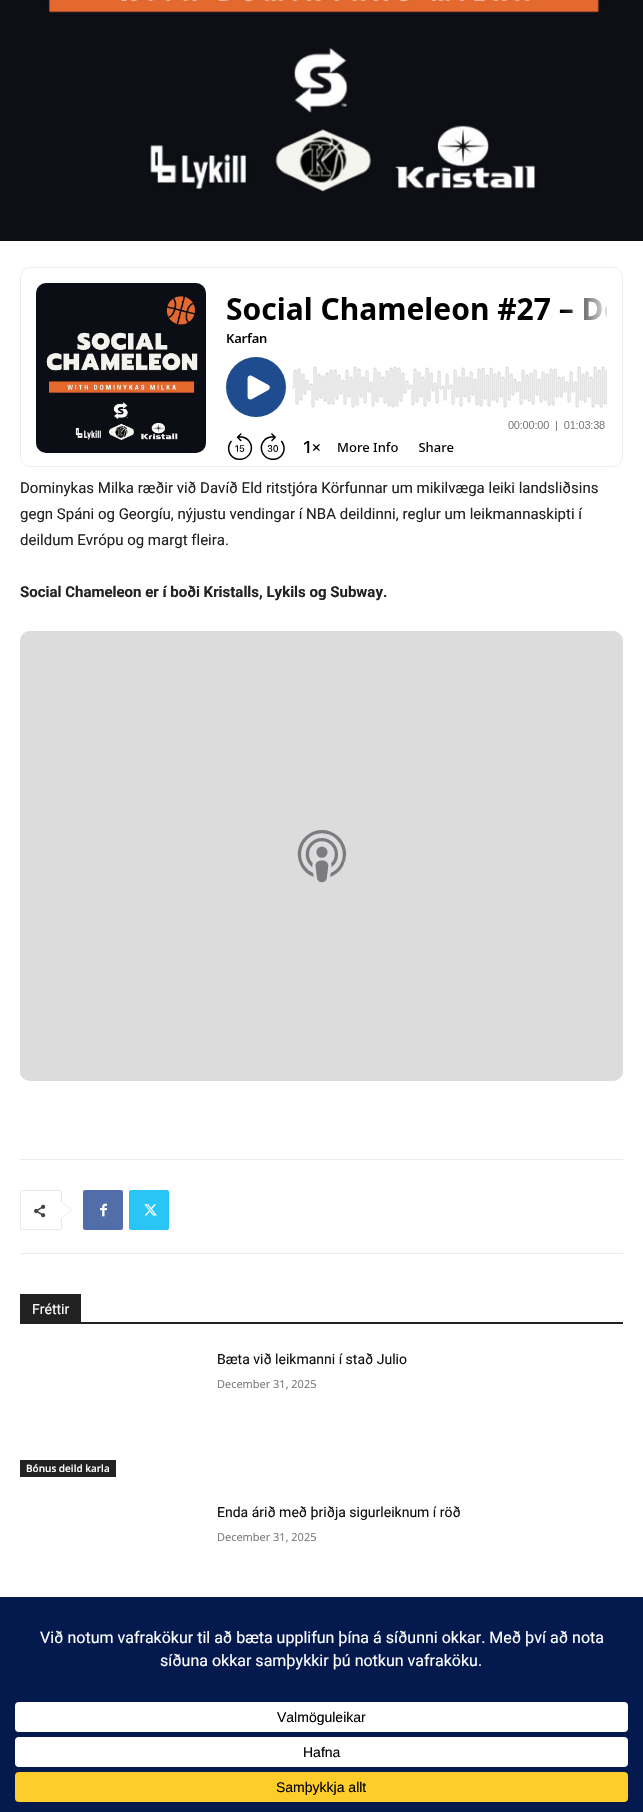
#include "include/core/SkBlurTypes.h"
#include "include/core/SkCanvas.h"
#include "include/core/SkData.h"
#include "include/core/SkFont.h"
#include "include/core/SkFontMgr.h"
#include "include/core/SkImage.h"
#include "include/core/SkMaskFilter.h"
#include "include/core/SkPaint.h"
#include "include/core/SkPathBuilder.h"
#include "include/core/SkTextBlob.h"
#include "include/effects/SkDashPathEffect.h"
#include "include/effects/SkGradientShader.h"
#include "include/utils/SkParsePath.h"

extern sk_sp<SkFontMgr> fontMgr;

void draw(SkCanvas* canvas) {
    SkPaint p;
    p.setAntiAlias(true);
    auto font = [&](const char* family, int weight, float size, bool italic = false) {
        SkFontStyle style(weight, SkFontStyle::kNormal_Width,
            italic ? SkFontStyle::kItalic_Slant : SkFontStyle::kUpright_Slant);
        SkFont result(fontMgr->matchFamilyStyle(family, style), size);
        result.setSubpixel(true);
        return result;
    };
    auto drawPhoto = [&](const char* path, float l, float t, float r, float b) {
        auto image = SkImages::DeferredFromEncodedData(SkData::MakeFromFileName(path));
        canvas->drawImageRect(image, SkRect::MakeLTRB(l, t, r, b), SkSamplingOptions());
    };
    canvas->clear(0xFFFFFFFF);
    drawPhoto("media/1.png", 0, 0, 643, 241);
    drawPhoto("media/2.png", 20, 267, 623, 467);
    auto font1 = font("Roboto", 400, 15);
    p.setColor(0xFF222222);
    {
        const struct { const char* s; float x, y; } items[] = {
            {"Dominykas Milka ræðir við Davíð Eld ritstjóra Körfunnar um mikilvæga leiki landsliðsins", 20, 493},
            {"gegn Spáni og Georgíu, nýjustu vendingar í NBA deildinni, reglur um leikmannaskipti í", 20, 519},
            {"deildum Evrópu og margt fleira.", 20, 545},
        };
        for (auto [s, x, y] : items) {
            canvas->drawString(s, x, y, font1, p);
        }
    }
    auto font2 = font("Roboto", 700, 15);
    canvas->drawString("Social Chameleon er í boði Kristalls, Lykils og Subway.", 20, 597, font2, p);
    p.setColor(0xFFE4E4E4);
    canvas->drawRoundRect(SkRect::MakeLTRB(20, 631, 623, 1081), 10, 10, p);
    drawPhoto("media/3.png", 20, 631, 623, 1081);
    p.setColor(0xFFEBEBEB);
    canvas->drawRect(SkRect::MakeLTRB(20, 1159, 623, 1160), p);
    p.setStyle(SkPaint::kStroke_Style);
    p.setStrokeWidth(1);
    p.setColor(0xFFE9E9E9);
    canvas->drawRoundRect(SkRect::MakeLTRB(20.5f, 1190.5f, 61.5f, 1229.5f), 1.5f, 1.5f, p);
    p.setStyle(SkPaint::kFill_Style);
    canvas->drawPath(SkPathBuilder().moveTo(61, 1219).lineTo(61, 1201).lineTo(72, 1210).close().detach(), p);
    drawPhoto("media/4.png", 34, 1204, 46, 1218);
    p.setColor(0xFFFFFFFF);
    canvas->drawPath(SkPathBuilder().moveTo(61, 1218).lineTo(61, 1202).lineTo(71, 1210).close().detach(), p);
    p.setColor(0xFF516EAB);
    canvas->drawRoundRect(SkRect::MakeLTRB(83, 1190, 123, 1230), 2, 2, p);
    drawPhoto("media/5.png", 100, 1203, 107, 1217);
    p.setColor(0xFF29C5F6);
    canvas->drawRoundRect(SkRect::MakeLTRB(129, 1190, 169, 1230), 2, 2, p);
    drawPhoto("media/6.png", 144, 1204, 157, 1216);
    {
        const struct { float l, t, r, b; SkColor color; } items[] = {
            {20, 1253, 623, 1254, 0xFFEBEBEB},
            {20, 1322, 623, 1324, 0xFF222222},
            {20, 1294, 81, 1322, 0xFF222222},
        };
        for (auto [l, t, r, b, color] : items) {
            p.setColor(color);
            canvas->drawRect(SkRect::MakeLTRB(l, t, r, b), p);
        }
    }
    auto font3 = font("Roboto", 400, 14);
    p.setColor(0xFFFFFFFF);
    canvas->drawString("Fréttir", 32, 1314, font3, p);
    p.setColor(0xFF111111);
    canvas->drawString("Bæta við leikmanni í stað Julio", 217, 1364, font3, p);
    auto font4 = font("Open Sans", 400, 11);
    p.setColor(0xFF767676);
    canvas->drawString("December 31, 2025", 217, 1388, font4, p);
    p.setColor(0xFF222222);
    canvas->drawRect(SkRect::MakeLTRB(20, 1460, 116, 1477), p);
    auto font5 = font("Open Sans", 600, 10);
    p.setColor(0xFFFFFFFF);
    canvas->drawString("Bónus deild karla", 26, 1472, font5, p);
    p.setColor(0xFF111111);
    canvas->drawString("Enda árið með þriðja sigurleiknum í röð", 217, 1517, font3, p);
    p.setColor(0xFF767676);
    canvas->drawString("December 31, 2025", 217, 1541, font4, p);
    p.setColor(0xFF04194E);
    canvas->drawRect(SkRect::MakeLTRB(0, 1597, 643, 1812), p);
    auto font6 = font("Roboto", 400, 16);
    p.setColor(0xFFFFFFFF);
    canvas->drawString("Við notum vafrakökur til að bæta upplifun þína á síðunni okkar. Með því að nota", 40, 1643, font6, p);
    canvas->drawString("síðuna okkar samþykkir þú notkun vafraköku.", 160, 1666, font6, p);
    canvas->drawRoundRect(SkRect::MakeLTRB(15, 1702, 628, 1732), 4, 4, p);
    auto font7 = font("Liberation Sans", 400, 14);
    p.setColor(0xFF000000);
    canvas->drawString("Valmöguleikar", 277, 1722, font7, p);
    p.setColor(0xFFFFFFFF);
    canvas->drawRoundRect(SkRect::MakeLTRB(15, 1737, 628, 1767), 4, 4, p);
    p.setColor(0xFF000000);
    canvas->drawString("Hafna", 303, 1757, font7, p);
    p.setColor(0xFFFFCD2A);
    canvas->drawRoundRect(SkRect::MakeLTRB(15, 1772, 628, 1802), 4, 4, p);
    p.setColor(0xFF000000);
    canvas->drawString("Samþykkja allt", 276, 1792, font7, p);
}
